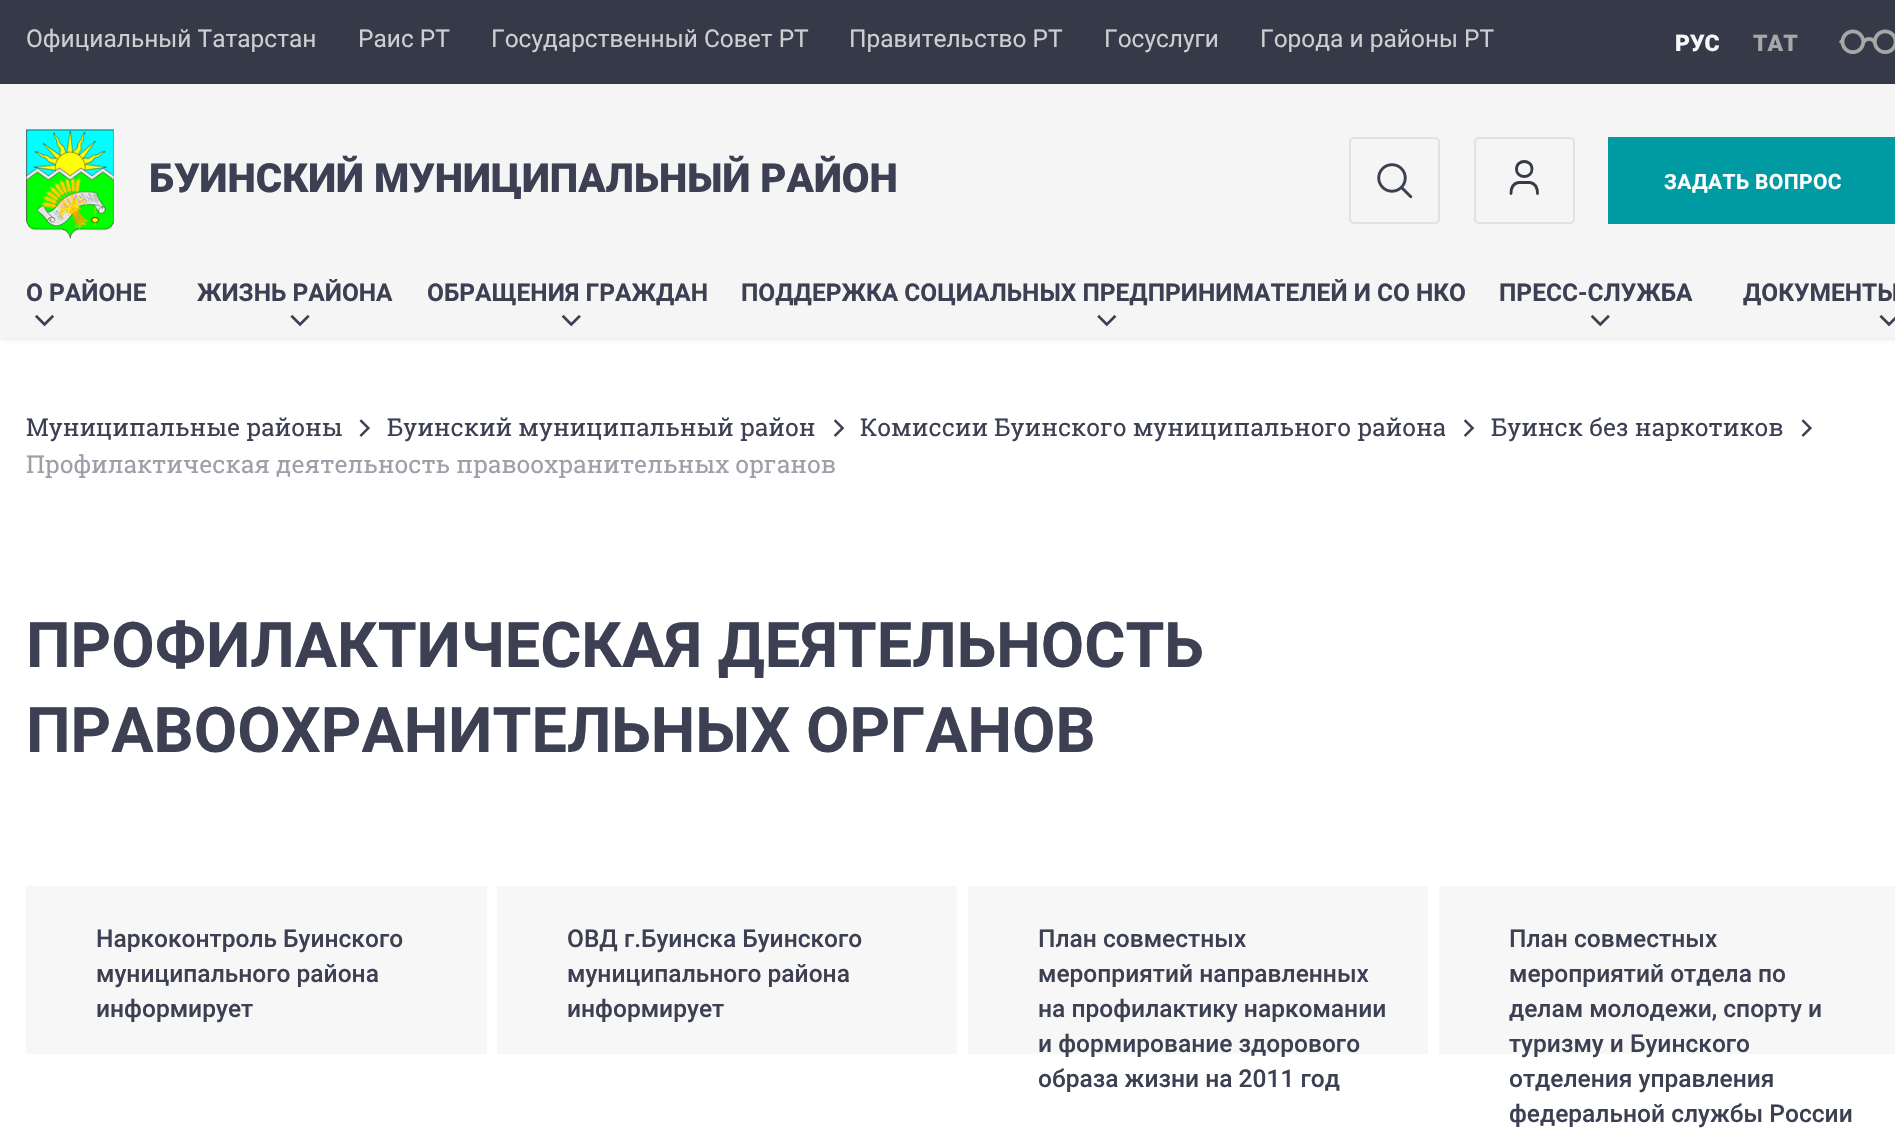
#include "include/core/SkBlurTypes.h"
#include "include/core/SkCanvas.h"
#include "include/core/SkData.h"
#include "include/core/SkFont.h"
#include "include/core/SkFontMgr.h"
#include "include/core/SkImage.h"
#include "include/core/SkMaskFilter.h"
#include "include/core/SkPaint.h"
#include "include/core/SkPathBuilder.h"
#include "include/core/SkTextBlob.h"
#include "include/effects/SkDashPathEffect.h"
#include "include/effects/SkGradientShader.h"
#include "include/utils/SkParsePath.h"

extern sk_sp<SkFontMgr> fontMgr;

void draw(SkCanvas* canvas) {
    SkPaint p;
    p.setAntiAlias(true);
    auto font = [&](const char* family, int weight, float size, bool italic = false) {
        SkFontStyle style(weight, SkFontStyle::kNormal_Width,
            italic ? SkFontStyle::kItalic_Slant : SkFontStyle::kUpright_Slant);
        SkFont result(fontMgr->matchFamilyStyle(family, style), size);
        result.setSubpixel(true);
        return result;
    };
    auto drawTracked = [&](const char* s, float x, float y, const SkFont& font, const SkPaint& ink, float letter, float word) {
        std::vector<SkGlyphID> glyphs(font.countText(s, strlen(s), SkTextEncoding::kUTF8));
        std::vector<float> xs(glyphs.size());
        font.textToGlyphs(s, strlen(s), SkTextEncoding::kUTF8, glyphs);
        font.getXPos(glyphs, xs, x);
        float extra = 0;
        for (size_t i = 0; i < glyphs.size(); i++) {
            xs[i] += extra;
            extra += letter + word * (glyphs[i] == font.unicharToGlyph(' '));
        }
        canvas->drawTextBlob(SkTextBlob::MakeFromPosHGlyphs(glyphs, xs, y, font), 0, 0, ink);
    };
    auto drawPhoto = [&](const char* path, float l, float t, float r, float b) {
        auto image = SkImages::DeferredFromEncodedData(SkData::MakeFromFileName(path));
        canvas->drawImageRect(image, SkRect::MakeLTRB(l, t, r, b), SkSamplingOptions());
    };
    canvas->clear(0xFF363A48);
    auto font1 = font("Roboto", 400, 24.5f);
    p.setColor(0xFFCDCED1);
    {
        const struct { const char* s; float x, y; } items[] = {
            {"Официальный Татарстан", 26, 47},
            {"Раис РТ", 358, 47},
            {"Государственный Совет РТ", 491, 47},
            {"Правительство РТ", 849, 47},
            {"Госуслуги", 1104, 47},
            {"Города и районы РТ", 1260, 47},
        };
        for (auto [s, x, y] : items) {
            canvas->drawString(s, x, y, font1, p);
        }
    }
    auto font2 = font("Roboto", 900, 23);
    p.setColor(0xFFF7F7F7);
    canvas->drawString("РУС", 1675, 51, font2, p);
    p.setColor(0xFFA7A7A7);
    canvas->drawString("ТАТ", 1753, 51, font2, p);
    drawPhoto("media/1.png", 1839, 29, 1895, 54);
    p.setColor(0xFFFFFFFF);
    canvas->drawRect(SkRect::MakeLTRB(0, 338, 1895, 1144), p);
    p.setColor(0x29000000);
    p.setMaskFilter(SkMaskFilter::MakeBlur(kNormal_SkBlurStyle, 2.5f));
    canvas->drawRect(SkRect::MakeLTRB(0, 84, 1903, 338), p);
    p.setMaskFilter(nullptr);
    p.setColor(0xFFF5F5F5);
    canvas->drawRect(SkRect::MakeLTRB(0, 84, 1895, 338), p);
    drawPhoto("media/2.png", 26, 129, 114, 239);
    auto font3 = font("Roboto", 900, 40.25f);
    p.setColor(0xFF3C4052);
    canvas->drawString("БУИНСКИЙ МУНИЦИПАЛЬНЫЙ РАЙОН", 149, 192, font3, p);
    p.setStyle(SkPaint::kStroke_Style);
    p.setStrokeWidth(2);
    p.setColor(0xFFDEE1E6);
    canvas->drawRoundRect(SkRect::MakeLTRB(1350, 138, 1439, 223), 4, 4, p);
    drawPhoto("media/3.png", 1377, 163, 1413, 199);
    canvas->drawRoundRect(SkRect::MakeLTRB(1475, 138, 1574, 223), 4, 4, p);
    p.setStrokeWidth(2.8f);
    p.setStrokeCap(SkPaint::kRound_Cap);
    p.setStrokeJoin(SkPaint::kRound_Join);
    p.setColor(0xFF363A48);
    canvas->drawPath(SkPathBuilder().moveTo(1511, 193.5f).cubicTo(1511, 188.5f, 1513, 183.5f, 1518.5f, 182.5f).lineTo(1530, 182.5f).cubicTo(1535.5f, 183.5f, 1537.5f, 188.5f, 1537.5f, 193.5f).moveTo(1532, 169).cubicTo(1532, 179, 1516.5f, 179, 1516.5f, 169).cubicTo(1516.5f, 159, 1532, 159, 1532, 169).close().detach(), p);
    p.setStyle(SkPaint::kFill_Style);
    p.setColor(0xFF009BA2);
    canvas->drawRect(SkRect::MakeLTRB(1608, 137, 1895, 224), p);
    auto font4 = font("Roboto", 700, 21);
    p.setColor(0xFFFFFFFF);
    drawTracked("ЗАДАТЬ ВОПРОС", 1664, 189, font4, p, 0.4f, 0);
    auto font5 = font("Roboto", 700, 24.5f);
    p.setColor(0xFF3C4052);
    canvas->drawString("О РАЙОНЕ", 26, 301, font5, p);
    drawPhoto("media/4.png", 35, 314, 55, 327);
    canvas->drawString("ЖИЗНЬ РАЙОНА", 197, 301, font5, p);
    drawPhoto("media/5.png", 290, 314, 310, 327);
    canvas->drawString("ОБРАЩЕНИЯ ГРАЖДАН", 427, 301, font5, p);
    drawPhoto("media/6.png", 561, 314, 581, 327);
    canvas->drawString("ПОДДЕРЖКА СОЦИАЛЬНЫХ ПРЕДПРИНИМАТЕЛЕЙ И СО НКО", 741, 301, font5, p);
    drawPhoto("media/7.png", 1097, 314, 1117, 327);
    canvas->drawString("ПРЕСС-СЛУЖБА", 1499, 301, font5, p);
    drawPhoto("media/6.png", 1590, 314, 1610, 327);
    canvas->drawString("ДОКУМЕНТЫ", 1743, 301, font5, p);
    drawPhoto("media/8.png", 1879, 314, 1895, 327);
    auto font6 = font("Roboto Slab", 400, 24.5f);
    canvas->drawString("Mуниципальные районы", 26, 436, font6, p);
    drawPhoto("media/9.png", 359, 419, 370, 437);
    canvas->drawString("Буинский муниципальный район", 387, 436, font6, p);
    drawPhoto("media/10.png", 833, 419, 845, 437);
    canvas->drawString("Комиссии Буинского муниципального района", 860, 436, font6, p);
    drawPhoto("media/10.png", 1463, 419, 1475, 437);
    canvas->drawString("Буинск без наркотиков", 1491, 436, font6, p);
    drawPhoto("media/9.png", 1801, 419, 1812, 437);
    p.setColor(0xFF9EA0A9);
    canvas->drawString("Профилактическая деятельность правоохранительных органов", 26, 473, font6, p);
    auto font7 = font("Roboto", 700, 63);
    p.setColor(0xFF3C4052);
    canvas->drawString("ПРОФИЛАКТИЧЕСКАЯ ДЕЯТЕЛЬНОСТЬ", 26, 667, font7, p);
    canvas->drawString("ПРАВООХРАНИТЕЛЬНЫХ ОРГАНОВ", 26, 752, font7, p);
    p.setColor(0xFFF7F7F7);
    canvas->drawRect(SkRect::MakeLTRB(26, 886, 487, 1054), p);
    auto font8 = font("Roboto", 500, 24.5f);
    p.setColor(0xFF3C4052);
    {
        const struct { const char* s; float x, y; } items[] = {
            {"Наркоконтроль Буинского", 96, 947},
            {"муниципального района", 96, 982},
            {"информирует", 96, 1017},
        };
        for (auto [s, x, y] : items) {
            canvas->drawString(s, x, y, font8, p);
        }
    }
    p.setColor(0xFFF7F7F7);
    canvas->drawRect(SkRect::MakeLTRB(497, 886, 957, 1054), p);
    p.setColor(0xFF3C4052);
    {
        const struct { const char* s; float x, y; } items[] = {
            {"ОВД г.Буинска Буинского", 567, 947},
            {"муниципального района", 567, 982},
            {"информирует", 567, 1017},
        };
        for (auto [s, x, y] : items) {
            canvas->drawString(s, x, y, font8, p);
        }
    }
    p.setColor(0xFFF7F7F7);
    canvas->drawRect(SkRect::MakeLTRB(968, 886, 1428, 1054), p);
    p.setColor(0xFF3C4052);
    {
        const struct { const char* s; float x, y; } items[] = {
            {"План совместных", 1038, 947},
            {"мероприятий направленных", 1038, 982},
            {"на профилактику наркомании", 1038, 1017},
            {"и формирование здорового", 1038, 1052},
            {"образа жизни на 2011 год", 1038, 1087},
        };
        for (auto [s, x, y] : items) {
            canvas->drawString(s, x, y, font8, p);
        }
    }
    p.setColor(0xFFF7F7F7);
    canvas->drawRect(SkRect::MakeLTRB(1439, 886, 1895, 1054), p);
    p.setColor(0xFF3C4052);
    {
        const struct { const char* s; float x, y; } items[] = {
            {"План совместных", 1509, 947},
            {"мероприятий отдела по", 1509, 982},
            {"делам молодежи, спорту и", 1509, 1017},
            {"туризму и Буинского", 1509, 1052},
            {"отделения управления", 1509, 1087},
            {"федеральной службы России", 1509, 1122},
        };
        for (auto [s, x, y] : items) {
            canvas->drawString(s, x, y, font8, p);
        }
    }
}
